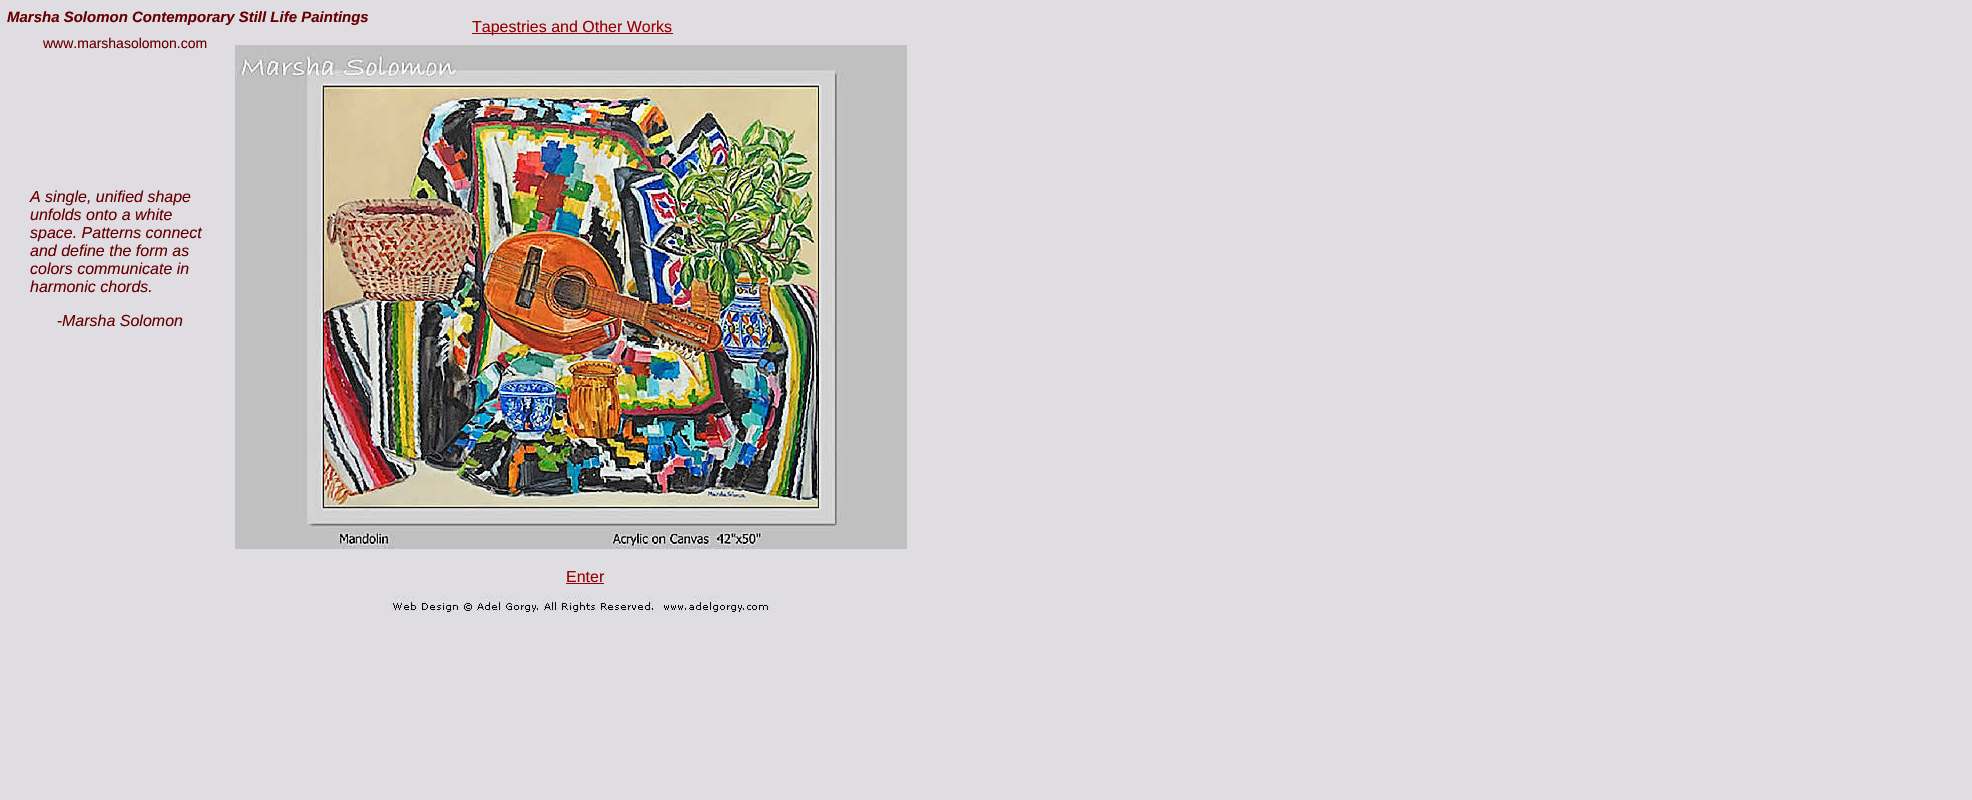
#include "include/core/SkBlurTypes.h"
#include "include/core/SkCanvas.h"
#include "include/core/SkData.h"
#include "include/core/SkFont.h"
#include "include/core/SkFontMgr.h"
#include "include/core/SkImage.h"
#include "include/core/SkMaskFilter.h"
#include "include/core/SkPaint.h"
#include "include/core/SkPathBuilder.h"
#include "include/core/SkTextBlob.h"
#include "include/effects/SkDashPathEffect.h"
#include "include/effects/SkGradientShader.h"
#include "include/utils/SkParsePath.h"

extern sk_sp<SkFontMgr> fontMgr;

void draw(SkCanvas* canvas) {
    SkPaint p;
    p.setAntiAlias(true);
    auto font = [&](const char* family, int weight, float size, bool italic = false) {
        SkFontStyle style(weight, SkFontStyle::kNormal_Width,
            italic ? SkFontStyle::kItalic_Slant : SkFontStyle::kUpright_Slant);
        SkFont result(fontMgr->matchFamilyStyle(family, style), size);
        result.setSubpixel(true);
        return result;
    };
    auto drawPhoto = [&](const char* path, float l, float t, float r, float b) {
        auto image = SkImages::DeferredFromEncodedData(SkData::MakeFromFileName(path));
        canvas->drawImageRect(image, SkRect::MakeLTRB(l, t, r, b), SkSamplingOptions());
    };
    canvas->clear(0xFFDFDCE2);
    auto font1 = font("Liberation Sans", 700, 15, true);
    p.setColor(0xFF660000);
    canvas->drawString("Marsha Solomon Contemporary Still Life Paintings", 7, 22, font1, p);
    p.setColor(0xFF990000);
    canvas->drawRect(SkRect::MakeLTRB(472, 33, 673, 34), p);
    auto font2 = font("Liberation Sans", 400, 16);
    canvas->drawString("Tapestries and Other Works", 472, 32, font2, p);
    auto font3 = font("Liberation Sans", 400, 14);
    p.setColor(0xFF660000);
    canvas->drawString("www.marshasolomon.com", 43, 48, font3, p);
    auto font4 = font("Liberation Sans", 400, 16, true);
    {
        const struct { const char* s; float x, y; } items[] = {
            {"A single, unified shape", 30, 202},
            {"unfolds onto a white", 30, 220},
            {"space. Patterns connect", 30, 238},
            {"and define the form as", 30, 256},
            {"colors communicate in", 30, 274},
            {"harmonic chords.", 30, 292},
        };
        for (auto [s, x, y] : items) {
            canvas->drawString(s, x, y, font4, p);
        }
    }
    canvas->drawString("-", 57, 326, font2, p);
    canvas->drawString("Marsha Solomon", 62, 326, font4, p);
    drawPhoto("media/1.png", 235, 45, 907, 549);
    p.setColor(0xFF990000);
    canvas->drawString("Enter", 566, 582, font2, p);
    canvas->drawRect(SkRect::MakeLTRB(566, 583, 604, 584), p);
    drawPhoto("media/2.png", 390, 596, 774, 612);
}
